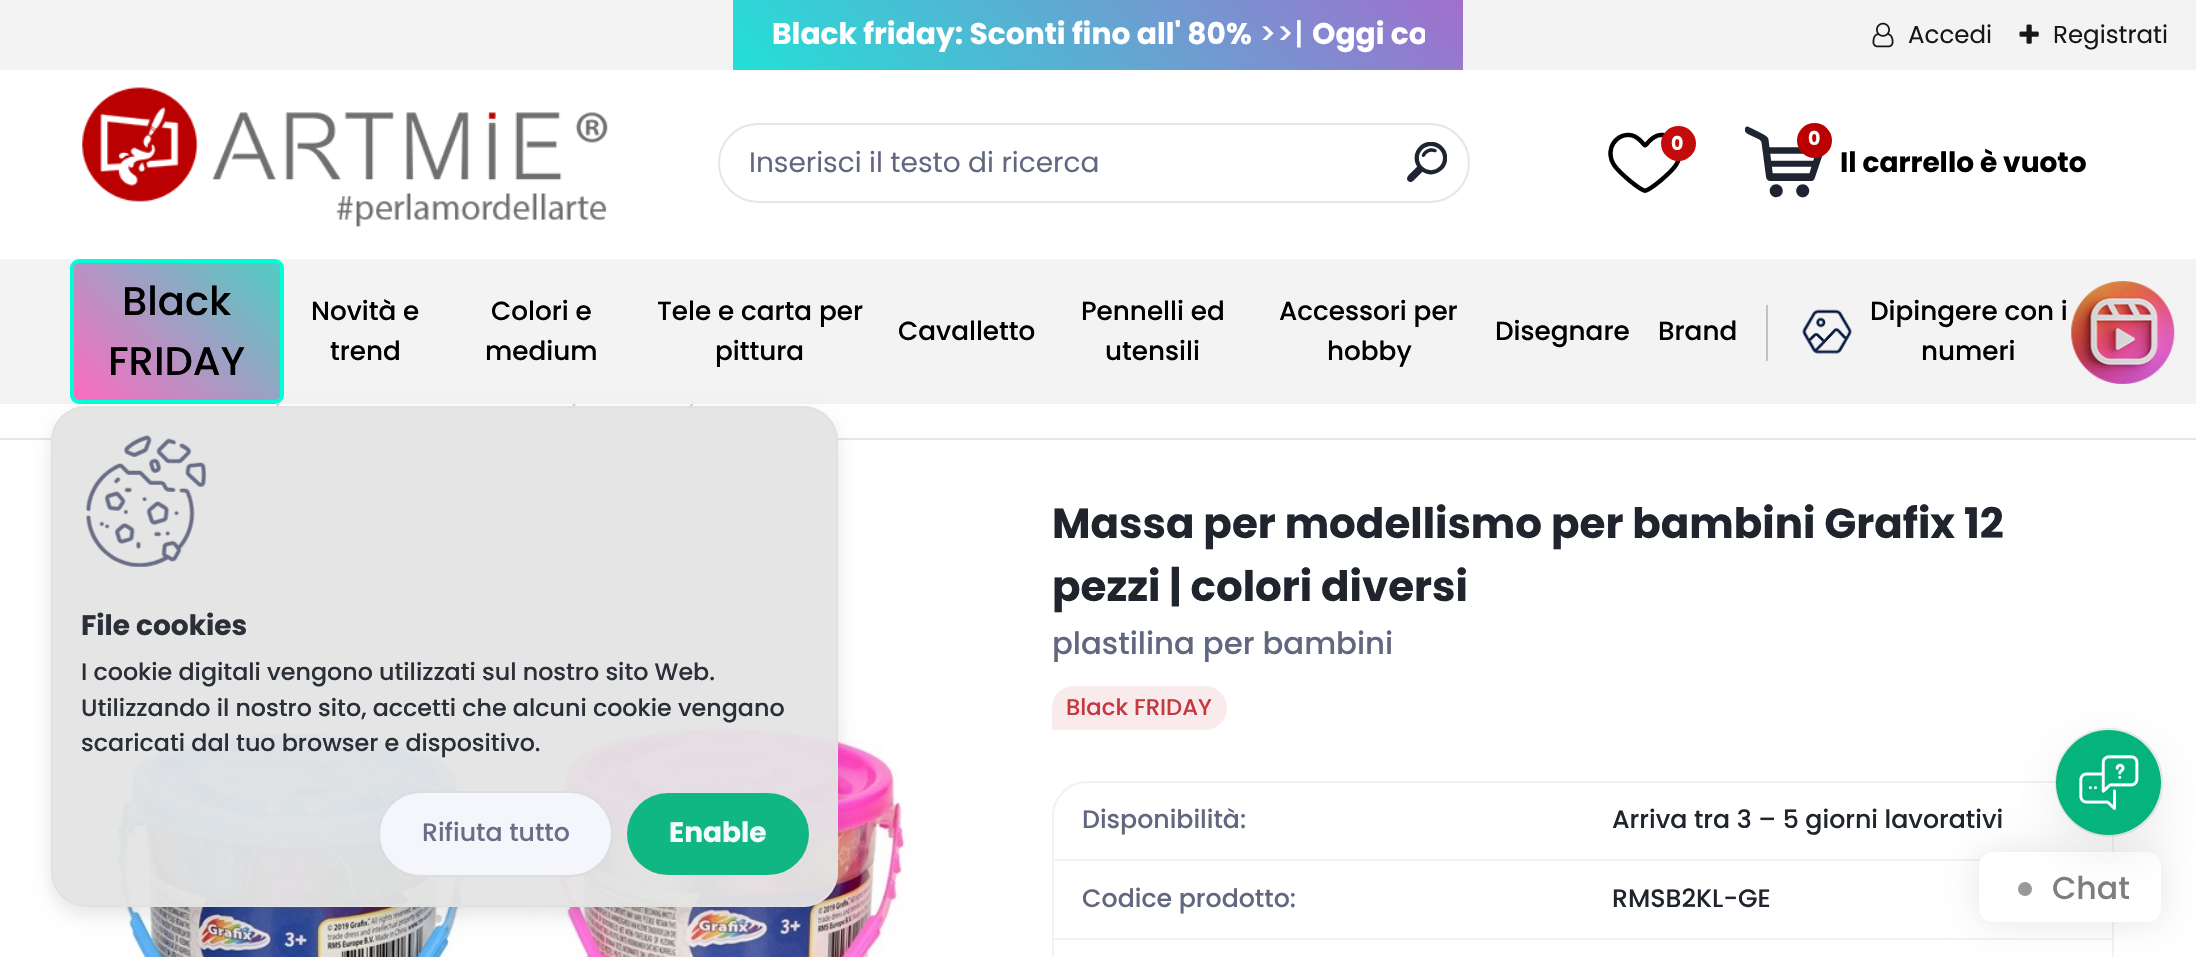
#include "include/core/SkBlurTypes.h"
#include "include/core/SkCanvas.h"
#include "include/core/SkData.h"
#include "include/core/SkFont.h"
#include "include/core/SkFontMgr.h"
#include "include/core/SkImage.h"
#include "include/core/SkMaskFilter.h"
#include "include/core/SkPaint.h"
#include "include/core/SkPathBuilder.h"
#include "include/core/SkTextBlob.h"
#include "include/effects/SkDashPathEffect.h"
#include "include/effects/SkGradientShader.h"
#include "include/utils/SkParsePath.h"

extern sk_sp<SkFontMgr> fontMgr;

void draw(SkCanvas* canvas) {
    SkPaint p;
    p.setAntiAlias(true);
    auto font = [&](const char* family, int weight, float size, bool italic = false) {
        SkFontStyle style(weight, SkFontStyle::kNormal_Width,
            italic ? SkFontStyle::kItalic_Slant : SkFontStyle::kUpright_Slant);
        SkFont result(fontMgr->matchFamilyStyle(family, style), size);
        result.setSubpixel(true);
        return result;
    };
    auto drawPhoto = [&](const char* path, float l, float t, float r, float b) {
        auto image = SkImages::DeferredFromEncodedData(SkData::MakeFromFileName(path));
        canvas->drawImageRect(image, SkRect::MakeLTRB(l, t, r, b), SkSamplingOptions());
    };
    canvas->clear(0xFFFFFFFF);
    p.setColor(0xFFF3F3F3);
    canvas->drawRect(SkRect::MakeLTRB(0, 0, 2196, 70), p);
    {
        const SkColor colors[] = {0xFF00FFD9, 0xFFFF1AC7, 0xFF00FFD9};
        const float stops[] = {0, 0.5f, 1};
        const SkPoint ends[] = {{1393, 940}, {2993, -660}};
        p.setShader(SkGradientShader::MakeLinear(ends, colors, stops, 3, SkTileMode::kClamp));
        p.setAlpha(255);
    }
    canvas->drawRect(SkRect::MakeLTRB(733, 0, 1463, 70), p);
    auto font1 = font("Poppins", 700, 29.75f);
    p.setShader(nullptr);
    p.setColor(0xFFFFFFFF);
    canvas->drawString("Black friday: Sconti fino all' 80%", 772, 44, font1, p);
    auto font2 = font("Poppins", 500, 29.75f);
    canvas->drawString(">>|", 1259, 44, font2, p);
    canvas->save();
    canvas->clipRect(SkRect::MakeLTRB(772, 12, 1425, 58));
    canvas->drawString("Oggi co", 1312, 44, font1, p);
    canvas->restore();
    p.setColor(0xFFC3C3C3);
    canvas->drawPath(SkPathBuilder().moveTo(278.5f, 403.5f).lineTo(280.5f, 403.5f).lineTo(263.5f, 420).lineTo(262, 420).close().detach(), p);
    canvas->drawPath(SkPathBuilder().moveTo(574.5f, 403.5f).lineTo(576.5f, 403.5f).lineTo(559.5f, 420).lineTo(558, 420).close().detach(), p);
    p.setColor(0x4D373737);
    canvas->drawPath(SkPathBuilder().moveTo(692, 403.5f).lineTo(694, 403.5f).lineTo(677.5f, 420).lineTo(675.5f, 420).close().detach(), p);
    p.setColor(0xFFF3F3F3);
    canvas->drawRect(SkRect::MakeLTRB(0, 259, 2196, 404), p);
    {
        const SkColor colors[] = {0xFFFF6AC1, 0xFF4ECDC4};
        const float stops[] = {0, 1};
        const SkPoint ends[] = {{91, 418}, {263, 245}};
        p.setShader(SkGradientShader::MakeLinear(ends, colors, stops, 2, SkTileMode::kClamp));
        p.setAlpha(255);
    }
    canvas->drawRect(SkRect::MakeLTRB(74, 263, 280, 400), p);
    p.setStyle(SkPaint::kStroke_Style);
    p.setStrokeWidth(4);
    p.setShader(nullptr);
    p.setColor(0xFF00FFD9);
    canvas->drawRoundRect(SkRect::MakeLTRB(72, 261, 282, 402), 7, 7, p);
    auto font3 = font("Poppins", 500, 40);
    p.setStyle(SkPaint::kFill_Style);
    p.setColor(0xFF000000);
    canvas->drawString("Black", 122, 315, font3, p);
    canvas->drawString("FRIDAY", 108, 375, font3, p);
    auto font4 = font("Poppins", 500, 26.25f);
    {
        const struct { const char* s; float x, y; } items[] = {
            {"Novità e", 311, 320},
            {"trend", 330, 360},
            {"Colori e", 491, 320},
            {"medium", 485, 360},
            {"Tele e carta per", 657, 320},
            {"pittura", 715, 360},
            {"Cavalletto", 898, 340},
            {"Pennelli ed", 1081, 320},
            {"utensili", 1105, 360},
            {"Accessori per", 1279, 320},
            {"hobby", 1327, 360},
            {"Disegnare", 1495, 340},
            {"Brand", 1658, 340},
        };
        for (auto [s, x, y] : items) {
            canvas->drawString(s, x, y, font4, p);
        }
    }
    p.setColor(0xFFC1C1C1);
    canvas->drawRect(SkRect::MakeLTRB(1766, 305, 1768, 361), p);
    drawPhoto("media/1.png", 1802, 309, 1852, 354);
    p.setColor(0xFF000000);
    canvas->drawString("Dipingere con i", 1870, 320, font4, p);
    canvas->drawString("numeri", 1921, 360, font4, p);
    drawPhoto("media/2.png", 2071, 281, 2175, 384);
    drawPhoto("media/3.png", 1872, 22, 1894, 48);
    auto font5 = font("Poppins", 400, 24.5f);
    p.setColor(0xFF171717);
    canvas->drawString("Accedi", 1908, 43, font5, p);
    drawPhoto("media/4.png", 2019, 24, 2039, 44);
    canvas->drawString("Registrati", 2053, 43, font5, p);
    drawPhoto("media/5.png", 82, 87, 608, 227);
    p.setStyle(SkPaint::kStroke_Style);
    p.setStrokeWidth(2);
    p.setColor(0xFFE6E6E6);
    canvas->drawRoundRect(SkRect::MakeLTRB(719, 124, 1469, 202), 39, 39, p);
    auto font6 = font("Poppins", 400, 28);
    p.setStyle(SkPaint::kFill_Style);
    p.setColor(0xFF626780);
    canvas->drawString("Inserisci il testo di ricerca", 749, 172, font6, p);
    drawPhoto("media/6.png", 1407, 142, 1447, 182);
    drawPhoto("media/7.png", 1608, 132, 1681, 193);
    p.setColor(0xFFC40B0B);
    canvas->drawCircle(1678.5f, 143.5f, 17.5f, p);
    auto font7 = font("Poppins", 700, 19);
    p.setColor(0xFFFFFFFF);
    canvas->drawString("0", 1671, 150, font7, p);
    drawPhoto("media/8.png", 1745, 126, 1823, 198);
    p.setColor(0xFFBA0000);
    canvas->drawCircle(1814.5f, 140.5f, 17.5f, p);
    p.setColor(0xFFFFFFFF);
    canvas->drawString("0", 1808, 145, font7, p);
    auto font8 = font("Poppins", 700, 28);
    p.setColor(0xFF000000);
    canvas->drawString("Il carrello è vuoto", 1840, 172, font8, p);
    p.setColor(0xFFE6E6E6);
    canvas->drawRect(SkRect::MakeLTRB(0, 438, 2196, 440), p);
    drawPhoto("media/9.png", 102, 722, 919, 957);
    auto font9 = font("Poppins", 700, 42);
    p.setColor(0xFF1F242D);
    canvas->drawString("Massa per modellismo per bambini Grafix 12", 1052, 538, font9, p);
    canvas->drawString("pezzi | colori diversi", 1052, 601, font9, p);
    auto font10 = font("Poppins", 500, 30.75f);
    p.setColor(0xFF626780);
    canvas->drawString("plastilina per bambini", 1052, 654, font10, p);
    p.setColor(0xFFF9EBEC);
    canvas->drawPath(SkPathBuilder().moveTo(1074, 686).lineTo(1205, 686).cubicTo(1217, 686, 1227, 696, 1227, 708).cubicTo(1227, 720, 1217, 730, 1205, 730).lineTo(1052, 730).lineTo(1052, 708).cubicTo(1052, 696, 1062, 686, 1074, 686).close().detach(), p);
    auto font11 = font("Poppins", 500, 22.75f);
    p.setColor(0xFFC5383F);
    canvas->drawString("Black FRIDAY", 1066, 715, font11, p);
    p.setStyle(SkPaint::kStroke_Style);
    p.setColor(0xFFF2F2F2);
    canvas->drawRoundRect(SkRect::MakeLTRB(1053, 782, 2113, 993), 34, 34, p);
    p.setStyle(SkPaint::kFill_Style);
    canvas->drawRect(SkRect::MakeLTRB(1054, 859, 1981, 861), p);
    auto font12 = font("Poppins", 500, 25.25f);
    p.setColor(0xFF626780);
    canvas->drawString("Disponibilità:", 1082, 828, font12, p);
    p.setColor(0xFF1F242D);
    canvas->drawString("Arriva tra 3 – 5 giorni lavorativi", 1612, 828, font12, p);
    p.setColor(0xFFF2F2F2);
    canvas->drawRect(SkRect::MakeLTRB(1054, 938, 2112, 940), p);
    p.setColor(0xFF626780);
    canvas->drawString("Codice prodotto:", 1082, 907, font12, p);
    p.setColor(0xFF1F242D);
    canvas->drawString("RMSB2KL-GE", 1612, 907, font12, p);
    p.setColor(0x1A000000);
    p.setMaskFilter(SkMaskFilter::MakeBlur(kNormal_SkBlurStyle, 17.5f));
    canvas->drawRoundRect(SkRect::MakeLTRB(1979, 852, 2161, 922), 14, 14, p);
    p.setMaskFilter(nullptr);
    p.setColor(0xFFFFFFFF);
    canvas->drawRoundRect(SkRect::MakeLTRB(1979, 852, 2161, 922), 14, 14, p);
    p.setColor(0xFF999999);
    canvas->drawCircle(2025, 889, 10.5f, p);
    p.setStyle(SkPaint::kStroke_Style);
    p.setStrokeWidth(7);
    p.setColor(0xFFFFFFFF);
    canvas->drawCircle(2025, 889, 10.5f, p);
    auto font13 = font("Poppins", 500, 31.5f);
    p.setStyle(SkPaint::kFill_Style);
    p.setColor(0xFF7D7D7D);
    canvas->drawString("Chat", 2052, 899, font13, p);
    canvas->save();
    canvas->clipPath(SkPathBuilder(SkPathFillType::kEvenOdd).moveTo(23, 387).lineTo(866, 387).lineTo(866, 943).lineTo(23, 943).close().moveTo(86, 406).lineTo(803, 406).cubicTo(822.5f, 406, 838, 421.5f, 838, 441).lineTo(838, 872).cubicTo(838, 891.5f, 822.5f, 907, 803, 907).lineTo(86, 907).cubicTo(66.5f, 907, 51, 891.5f, 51, 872).lineTo(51, 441).cubicTo(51, 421.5f, 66.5f, 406, 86, 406).close().detach(), true);
    p.setColor(0x1A000000);
    p.setMaskFilter(SkMaskFilter::MakeBlur(kNormal_SkBlurStyle, 9));
    canvas->drawRoundRect(SkRect::MakeLTRB(51, 415, 838, 915), 35, 35, p);
    p.setMaskFilter(nullptr);
    canvas->restore();
    p.setColor(0xF2E4E4E4);
    canvas->drawRoundRect(SkRect::MakeLTRB(51, 406, 838, 907), 35, 35, p);
    p.setStyle(SkPaint::kStroke_Style);
    p.setStrokeWidth(2);
    p.setColor(0xF2E0E0E0);
    canvas->drawRoundRect(SkRect::MakeLTRB(52, 407, 837, 906), 34, 34, p);
    drawPhoto("media/10.png", 86, 435, 207, 567);
    p.setStyle(SkPaint::kFill_Style);
    p.setColor(0xFF2A2F38);
    canvas->drawString("File cookies", 81, 635, font8, p);
    auto font14 = font("Poppins", 500, 23.8f);
    {
        const struct { const char* s; float x, y; } items[] = {
            {"I cookie digitali vengono utilizzati sul nostro sito Web.", 81, 680},
            {"Utilizzando il nostro sito, accetti che alcuni cookie vengano", 81, 716},
            {"scaricati dal tuo browser e dispositivo.", 81, 751},
        };
        for (auto [s, x, y] : items) {
            canvas->drawString(s, x, y, font14, p);
        }
    }
    p.setColor(0xF2F6F7FC);
    canvas->drawRoundRect(SkRect::MakeLTRB(378, 791, 613, 877), 43, 43, p);
    p.setStyle(SkPaint::kStroke_Style);
    p.setColor(0x1A000000);
    canvas->drawRoundRect(SkRect::MakeLTRB(379, 792, 612, 876), 42, 42, p);
    p.setStyle(SkPaint::kFill_Style);
    p.setColor(0xFF696E86);
    canvas->drawString("Rifiuta tutto", 422, 841, font12, p);
    p.setColor(0xF205B47C);
    canvas->drawRoundRect(SkRect::MakeLTRB(627, 793, 809, 875), 41, 41, p);
    p.setColor(0xFFF3FBF9);
    canvas->drawString("Enable", 669, 842, font8, p);
    p.setStyle(SkPaint::kStroke_Style);
    p.setColor(0x33969696);
    canvas->drawRoundRect(SkRect::MakeLTRB(2056, 729, 2162, 836), 53, 53, p);
    p.setStyle(SkPaint::kFill_Style);
    p.setMaskFilter(SkMaskFilter::MakeBlur(kNormal_SkBlurStyle, 26));
    canvas->drawRoundRect(SkRect::MakeLTRB(2056, 747, 2161, 852), 52.5f, 52.5f, p);
    p.setMaskFilter(nullptr);
    p.setColor(0xFF05B47C);
    canvas->drawCircle(2108.5f, 782.5f, 52.5f, p);
    drawPhoto("media/11.png", 2079, 755, 2139, 810);
}
